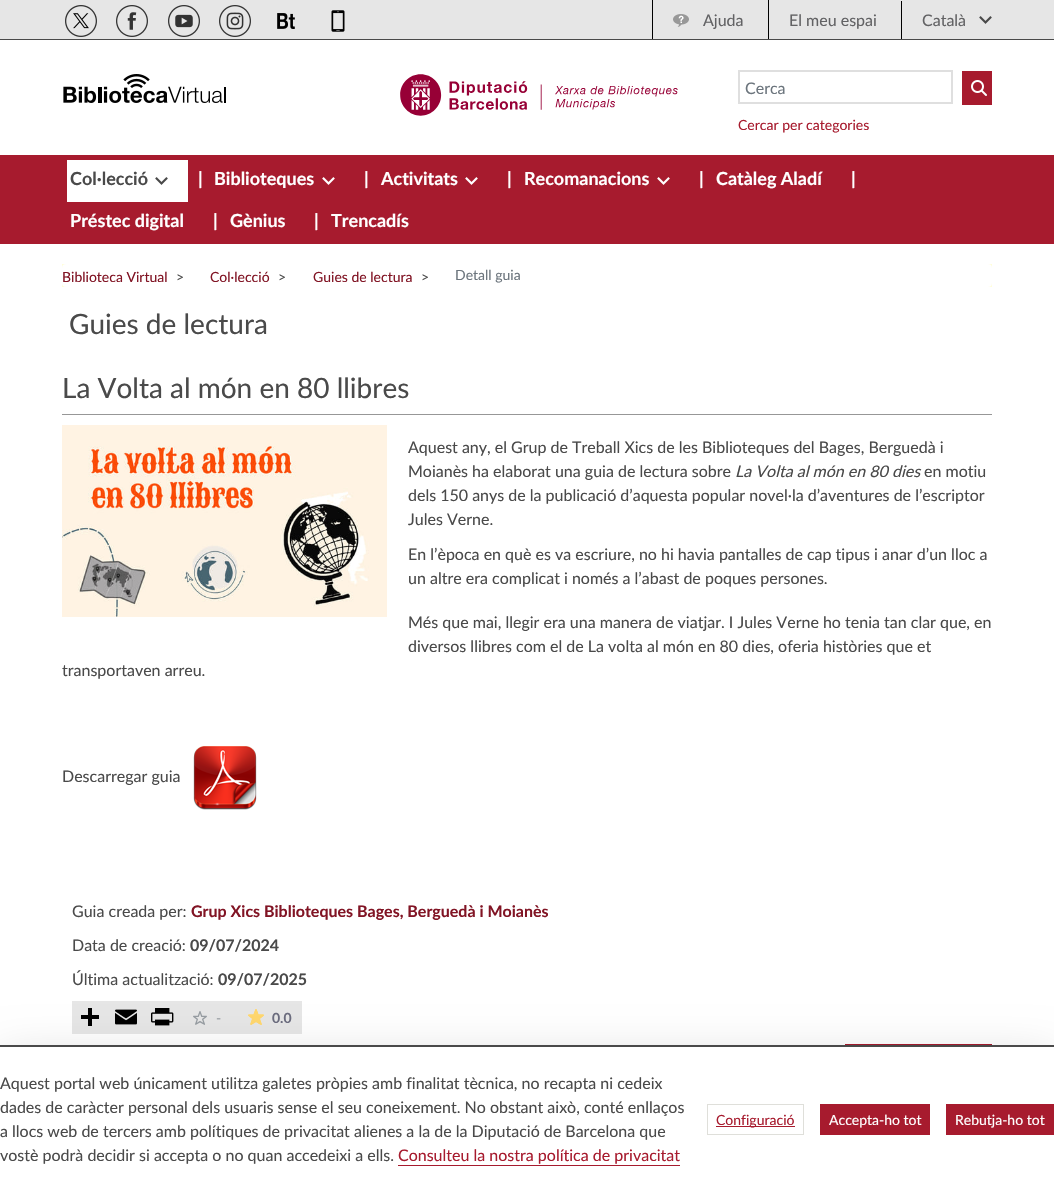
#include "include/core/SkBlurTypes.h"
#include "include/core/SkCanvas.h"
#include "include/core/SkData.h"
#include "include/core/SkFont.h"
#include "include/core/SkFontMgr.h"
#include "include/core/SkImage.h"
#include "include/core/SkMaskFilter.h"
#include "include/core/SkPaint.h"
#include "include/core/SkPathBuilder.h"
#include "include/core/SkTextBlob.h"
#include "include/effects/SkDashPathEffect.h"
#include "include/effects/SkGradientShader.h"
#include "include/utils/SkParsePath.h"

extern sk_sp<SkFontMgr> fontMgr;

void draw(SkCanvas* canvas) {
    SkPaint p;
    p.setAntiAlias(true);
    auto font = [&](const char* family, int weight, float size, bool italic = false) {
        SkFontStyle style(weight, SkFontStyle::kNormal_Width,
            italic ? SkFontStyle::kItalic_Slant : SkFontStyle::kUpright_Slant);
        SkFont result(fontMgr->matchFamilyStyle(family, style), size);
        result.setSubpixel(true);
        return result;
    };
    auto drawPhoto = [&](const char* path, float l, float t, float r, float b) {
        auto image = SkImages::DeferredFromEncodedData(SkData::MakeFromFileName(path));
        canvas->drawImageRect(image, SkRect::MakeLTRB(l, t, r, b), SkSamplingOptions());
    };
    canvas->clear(0xFFFFFFFF);
    p.setColor(0xFFE6E6E6);
    canvas->drawRect(SkRect::MakeLTRB(0, 0, 1054, 39), p);
    p.setColor(0xFF4A4A4A);
    canvas->drawRect(SkRect::MakeLTRB(0, 39, 1054, 40), p);
    drawPhoto("media/1.png", 65, 5, 97, 37);
    drawPhoto("media/2.png", 116, 5, 148, 37);
    drawPhoto("media/3.png", 168, 5, 200, 37);
    drawPhoto("media/4.png", 219, 5, 251, 37);
    drawPhoto("media/5.png", 277, 13, 295, 29);
    drawPhoto("media/6.png", 331, 10, 345, 32);
    p.setColor(0xFF000000);
    canvas->drawRect(SkRect::MakeLTRB(652, 0, 653, 39), p);
    drawPhoto("media/7.png", 673, 14, 689, 27);
    auto font1 = font("Lato", 400, 16);
    p.setColor(0xFF626264);
    canvas->drawString("Ajuda", 703, 26, font1, p);
    p.setColor(0xFF000000);
    canvas->drawRect(SkRect::MakeLTRB(768, 0, 769, 39), p);
    p.setColor(0xFF626264);
    canvas->drawString("El meu espai", 789, 26, font1, p);
    p.setColor(0xFF000000);
    canvas->drawRect(SkRect::MakeLTRB(901, 1, 902, 39), p);
    drawPhoto("media/8.png", 979, 16, 992, 24);
    p.setColor(0xFF626264);
    canvas->drawString("Català", 922, 26, font1, p);
    drawPhoto("media/9.png", 63, 74, 226, 103);
    drawPhoto("media/10.png", 400, 74, 678, 116);
    p.setStyle(SkPaint::kStroke_Style);
    p.setStrokeWidth(2);
    p.setColor(0xFFDFDFDF);
    canvas->drawRect(SkRect::MakeLTRB(739, 71, 952, 103), p);
    p.setStyle(SkPaint::kFill_Style);
    p.setColor(0xFF6C757D);
    canvas->drawString("Cerca", 745, 94, font1, p);
    p.setColor(0xFFA71B2E);
    canvas->drawRect(SkRect::MakeLTRB(962, 71, 992, 105), p);
    drawPhoto("media/11.png", 971, 80, 987, 96);
    auto font2 = font("Lato", 400, 14);
    canvas->drawString("Cercar per categories", 738, 130, font2, p);
    canvas->drawRect(SkRect::MakeLTRB(0, 155, 1054, 244), p);
    p.setColor(0xFFFFFFFF);
    canvas->drawRect(SkRect::MakeLTRB(67, 160, 188, 202), p);
    auto font3 = font("Lato", 700, 18);
    p.setColor(0xFF4A4A4A);
    canvas->drawString("Col·lecció", 70, 185, font3, p);
    drawPhoto("media/12.png", 155, 177, 168, 185);
    p.setColor(0xFFFFFFFF);
    canvas->drawString("|", 198, 185, font3, p);
    canvas->drawString("Biblioteques", 214, 185, font3, p);
    drawPhoto("media/13.png", 322, 177, 335, 185);
    canvas->drawString("|", 364, 185, font3, p);
    canvas->drawString("Activitats", 381, 185, font3, p);
    drawPhoto("media/13.png", 465, 177, 478, 185);
    canvas->drawString("|", 507, 185, font3, p);
    canvas->drawString("Recomanacions", 524, 185, font3, p);
    drawPhoto("media/13.png", 657, 177, 670, 185);
    {
        const struct { const char* s; float x, y; } items[] = {
            {"|", 699, 185},
            {"Catàleg Aladí", 716, 185},
            {"|", 851, 185},
            {"Préstec digital", 70, 227},
            {"|", 213, 227},
            {"Gènius", 230, 227},
            {"|", 314, 227},
            {"Trencadís", 331, 227},
        };
        for (auto [s, x, y] : items) {
            canvas->drawString(s, x, y, font3, p);
        }
    }
    p.setColor(0xFFFFFED9);
    canvas->drawRect(SkRect::MakeLTRB(62, 264, 992, 287), p);
    p.setColor(0xFFFFFFFF);
    canvas->drawRoundRect(SkRect::MakeLTRB(62, 264, 992, 287), 4, 4, p);
    p.setColor(0xFF811424);
    canvas->drawString("Biblioteca Virtual", 62, 282, font2, p);
    p.setColor(0xFF4A4A4A);
    canvas->drawString(">", 176, 282, font2, p);
    p.setColor(0xFF811424);
    canvas->drawString("Col·lecció", 210, 282, font2, p);
    p.setColor(0xFF4A4A4A);
    canvas->drawString(">", 278, 282, font2, p);
    p.setColor(0xFF811424);
    canvas->drawString("Guies de lectura", 313, 282, font2, p);
    p.setColor(0xFF4A4A4A);
    canvas->drawString(">", 421, 282, font2, p);
    p.setColor(0xFF6C757D);
    canvas->drawString("Detall guia", 455, 280, font2, p);
    auto font4 = font("Lato", 400, 28);
    p.setColor(0xFF4A4A4A);
    canvas->drawString("Guies de lectura", 69, 334, font4, p);
    p.setColor(0xFF979797);
    canvas->drawRect(SkRect::MakeLTRB(62, 414, 992, 415), p);
    p.setColor(0xFF4A4A4A);
    canvas->drawString("La Volta al món en 80 llibres", 62, 398, font4, p);
    drawPhoto("media/14.png", 62, 425, 387, 617);
    canvas->drawString("Aquest any, el Grup de Treball Xics de les Biblioteques del Bages, Berguedà i", 408, 453, font1, p);
    canvas->drawString("Moianès ha elaborat una guia de lectura sobre", 408, 477, font1, p);
    auto font5 = font("Lato", 400, 16, true);
    canvas->drawString("La Volta al món en 80 dies", 735, 477, font5, p);
    {
        const struct { const char* s; float x, y; } items[] = {
            {"en motiu", 924, 477},
            {"dels 150 anys de la publicació d’aquesta popular novel·la d’aventures de l’escriptor", 408, 501},
            {"Jules Verne.", 408, 525},
            {"En l’època en què es va escriure, no hi havia pantalles de cap tipus i anar d’un lloc a", 408, 560},
            {"un altre era complicat i només a l’abast de poques persones.", 408, 584},
            {"Més que mai, llegir era una manera de viatjar. I Jules Verne ho tenia tan clar que, en", 408, 628},
            {"diversos llibres com el de La volta al món en 80 dies, oferia històries que et", 408, 652},
            {"transportaven arreu.", 62, 676},
            {"Descarregar guia", 62, 782},
        };
        for (auto [s, x, y] : items) {
            canvas->drawString(s, x, y, font1, p);
        }
    }
    drawPhoto("media/15.png", 193, 746, 257, 810);
    canvas->drawString("Guia creada per:", 72, 917, font1, p);
    auto font6 = font("Lato", 700, 16);
    p.setColor(0xFF811424);
    canvas->drawString("Grup Xics Biblioteques Bages, Berguedà i Moianès", 191, 917, font6, p);
    p.setColor(0xFF4A4A4A);
    canvas->drawString("Data de creació:", 72, 951, font1, p);
    canvas->drawString("09/07/2024", 190, 951, font6, p);
    canvas->drawString("Última actualització:", 72, 985, font1, p);
    canvas->drawString("09/07/2025", 218, 985, font6, p);
    {
        const struct { float l, t, r, b; SkColor color; } items[] = {
            {72, 1001, 302, 1034, 0xFFE6E6E6},
            {88, 1008, 92, 1026, 0xFF000000},
            {81, 1015, 99, 1019, 0xFF000000},
        };
        for (auto [l, t, r, b, color] : items) {
            p.setColor(color);
            canvas->drawRect(SkRect::MakeLTRB(l, t, r, b), p);
        }
    }
    drawPhoto("media/16.png", 115, 1009, 137, 1025);
    drawPhoto("media/17.png", 151, 1008, 174, 1026);
    drawPhoto("media/18.png", 193, 1011, 207, 1025);
    p.setColor(0xFF979DA2);
    canvas->drawString("-", 216, 1023, font2, p);
    drawPhoto("media/19.png", 248, 1009, 264, 1025);
    auto font7 = font("Lato", 700, 14);
    p.setColor(0xFF6B6C7E);
    canvas->drawString("0.0", 272, 1023, font7, p);
    p.setColor(0xFFA71B2E);
    canvas->drawRect(SkRect::MakeLTRB(845, 1044, 992, 1045), p);
    p.setColor(0x2E000000);
    p.setMaskFilter(SkMaskFilter::MakeBlur(kNormal_SkBlurStyle, 24));
    canvas->drawRect(SkRect::MakeLTRB(0, 1061, 1054, 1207), p);
    p.setMaskFilter(nullptr);
    p.setColor(0xFFFFFFFF);
    canvas->drawRect(SkRect::MakeLTRB(0, 1047, 1054, 1191), p);
    p.setColor(0xFF4A4A4A);
    canvas->drawRect(SkRect::MakeLTRB(0, 1045, 1054, 1047), p);
    {
        const struct { const char* s; float x, y; } items[] = {
            {"Aquest portal web únicament utilitza galetes pròpies amb finalitat tècnica, no recapta ni cedeix", 0, 1089},
            {"dades de caràcter personal dels usuaris sense el seu coneixement. No obstant això, conté enllaços", 0, 1113},
            {"a llocs web de tercers amb polítiques de privacitat alienes a la de la Diputació de Barcelona que", 0, 1137},
            {"vostè podrà decidir si accepta o no quan accedeixi a ells.", 0, 1161},
        };
        for (auto [s, x, y] : items) {
            canvas->drawString(s, x, y, font1, p);
        }
    }
    p.setColor(0xFFA71B2E);
    canvas->drawString("Consulteu la nostra política de privacitat", 398, 1161, font1, p);
    canvas->drawRect(SkRect::MakeLTRB(398, 1165, 680, 1166), p);
    p.setStyle(SkPaint::kStroke_Style);
    p.setStrokeWidth(1);
    p.setColor(0xFFDFDFDA);
    canvas->drawRect(SkRect::MakeLTRB(707.5f, 1104.5f, 803.5f, 1134.5f), p);
    p.setStyle(SkPaint::kFill_Style);
    p.setColor(0xFFA71B2E);
    canvas->drawRect(SkRect::MakeLTRB(716, 1126, 795, 1127), p);
    canvas->drawString("Configuració", 716, 1125, font2, p);
    canvas->drawRect(SkRect::MakeLTRB(820, 1104, 930, 1135), p);
    p.setColor(0xFFFFFFFF);
    canvas->drawString("Accepta-ho tot", 829, 1125, font2, p);
    p.setColor(0xFFA71B2E);
    canvas->drawRect(SkRect::MakeLTRB(946, 1104, 1054, 1135), p);
    p.setColor(0xFFFFFFFF);
    canvas->drawString("Rebutja-ho tot", 955, 1125, font2, p);
}
